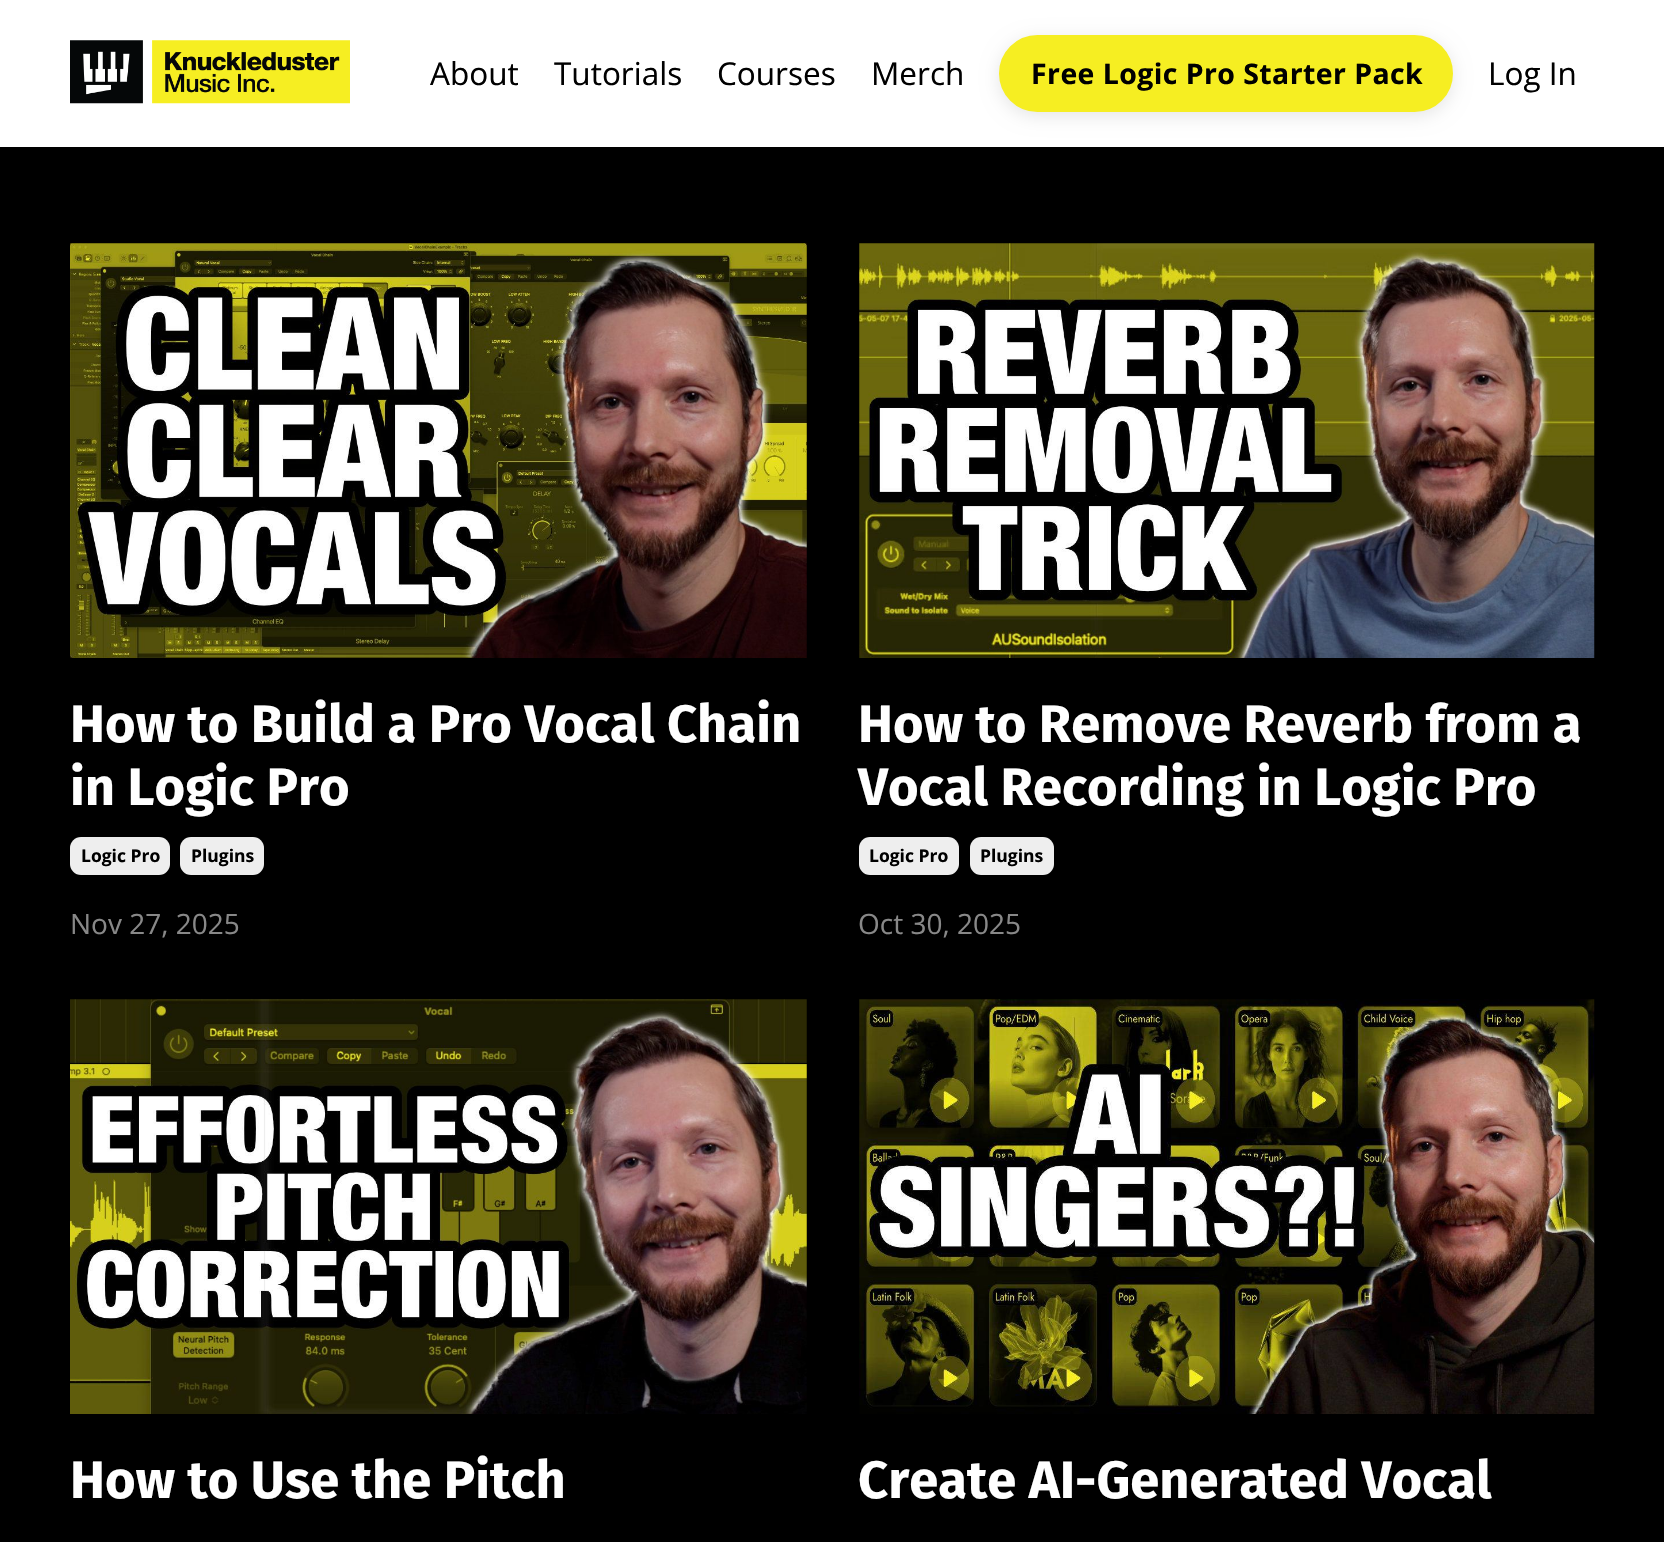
#include "include/core/SkBlurTypes.h"
#include "include/core/SkCanvas.h"
#include "include/core/SkData.h"
#include "include/core/SkFont.h"
#include "include/core/SkFontMgr.h"
#include "include/core/SkImage.h"
#include "include/core/SkMaskFilter.h"
#include "include/core/SkPaint.h"
#include "include/core/SkPathBuilder.h"
#include "include/core/SkTextBlob.h"
#include "include/effects/SkDashPathEffect.h"
#include "include/effects/SkGradientShader.h"
#include "include/utils/SkParsePath.h"

extern sk_sp<SkFontMgr> fontMgr;

void draw(SkCanvas* canvas) {
    SkPaint p;
    p.setAntiAlias(true);
    auto font = [&](const char* family, int weight, float size, bool italic = false) {
        SkFontStyle style(weight, SkFontStyle::kNormal_Width,
            italic ? SkFontStyle::kItalic_Slant : SkFontStyle::kUpright_Slant);
        SkFont result(fontMgr->matchFamilyStyle(family, style), size);
        result.setSubpixel(true);
        return result;
    };
    auto drawTracked = [&](const char* s, float x, float y, const SkFont& font, const SkPaint& ink, float letter, float word) {
        std::vector<SkGlyphID> glyphs(font.countText(s, strlen(s), SkTextEncoding::kUTF8));
        std::vector<float> xs(glyphs.size());
        font.textToGlyphs(s, strlen(s), SkTextEncoding::kUTF8, glyphs);
        font.getXPos(glyphs, xs, x);
        float extra = 0;
        for (size_t i = 0; i < glyphs.size(); i++) {
            xs[i] += extra;
            extra += letter + word * (glyphs[i] == font.unicharToGlyph(' '));
        }
        canvas->drawTextBlob(SkTextBlob::MakeFromPosHGlyphs(glyphs, xs, y, font), 0, 0, ink);
    };
    auto drawPhoto = [&](const char* path, float l, float t, float r, float b) {
        auto image = SkImages::DeferredFromEncodedData(SkData::MakeFromFileName(path));
        canvas->drawImageRect(image, SkRect::MakeLTRB(l, t, r, b), SkSamplingOptions());
    };
    canvas->clear(0xFFFFFFFF);
    drawPhoto("media/1.png", 70, 40, 350, 104);
    auto font1 = font("Open Sans", 400, 31.5f);
    p.setColor(0xFF000000);
    {
        const struct { const char* s; float x, y; } items[] = {
            {"About", 430, 85},
            {"Tutorials", 554, 85},
            {"Courses", 717, 85},
            {"Merch", 871, 85},
        };
        for (auto [s, x, y] : items) {
            canvas->drawString(s, x, y, font1, p);
        }
    }
    p.setColor(0x1A000000);
    p.setMaskFilter(SkMaskFilter::MakeBlur(kNormal_SkBlurStyle, 9));
    canvas->drawRoundRect(SkRect::MakeLTRB(999, 39, 1453, 116), 38.5f, 38.5f, p);
    p.setMaskFilter(nullptr);
    p.setColor(0xFFF6EE22);
    canvas->drawRoundRect(SkRect::MakeLTRB(1001, 37, 1451, 110), 36.5f, 36.5f, p);
    p.setStyle(SkPaint::kStroke_Style);
    p.setStrokeWidth(4);
    canvas->drawRoundRect(SkRect::MakeLTRB(1001, 37, 1451, 110), 36.5f, 36.5f, p);
    auto font2 = font("Open Sans", 700, 28.4f);
    p.setStyle(SkPaint::kFill_Style);
    p.setColor(0xFF000000);
    drawTracked("Free Logic Pro Starter Pack", 1031, 84, font2, p, 0.45f, 0);
    canvas->drawString("Log In", 1488, 85, font1, p);
    canvas->drawRect(SkRect::MakeLTRB(0, 147, 1664, 1542), p);
    drawPhoto("media/2.png", 70, 243, 807, 658);
    auto font3 = font("Fira Sans", 700, 52.5f);
    p.setColor(0xFFFFFFFF);
    canvas->drawString("How to Build a Pro Vocal Chain", 70, 742, font3, p);
    canvas->drawString("in Logic Pro", 70, 805, font3, p);
    p.setColor(0xFFEEEEEE);
    canvas->drawRoundRect(SkRect::MakeLTRB(70, 837, 170, 875), 11, 11, p);
    auto font4 = font("Open Sans", 700, 17.5f);
    p.setColor(0xFF000000);
    canvas->drawString("Logic Pro", 81, 862, font4, p);
    p.setColor(0xFFEEEEEE);
    canvas->drawRoundRect(SkRect::MakeLTRB(180, 837, 264, 875), 11, 11, p);
    p.setColor(0xFF000000);
    canvas->drawString("Plugins", 191, 862, font4, p);
    auto font5 = font("Open Sans", 400, 28);
    p.setColor(0xFF888888);
    canvas->drawString("Nov 27, 2025", 70, 934, font5, p);
    drawPhoto("media/3.png", 859, 243, 1595, 658);
    p.setColor(0xFFFFFFFF);
    canvas->drawString("How to Remove Reverb from a", 858, 742, font3, p);
    canvas->drawString("Vocal Recording in Logic Pro", 858, 805, font3, p);
    p.setColor(0xFFEEEEEE);
    canvas->drawRoundRect(SkRect::MakeLTRB(859, 837, 959, 875), 11, 11, p);
    p.setColor(0xFF000000);
    canvas->drawString("Logic Pro", 869, 862, font4, p);
    p.setColor(0xFFEEEEEE);
    canvas->drawRoundRect(SkRect::MakeLTRB(970, 837, 1054, 875), 11, 11, p);
    p.setColor(0xFF000000);
    canvas->drawString("Plugins", 980, 862, font4, p);
    p.setColor(0xFF888888);
    canvas->drawString("Oct 30, 2025", 858, 934, font5, p);
    drawPhoto("media/4.png", 70, 999, 807, 1414);
    p.setColor(0xFFFFFFFF);
    canvas->drawString("How to Use the Pitch", 70, 1498, font3, p);
    drawPhoto("media/5.png", 859, 999, 1595, 1414);
    canvas->drawString("Create AI-Generated Vocal", 858, 1498, font3, p);
}
